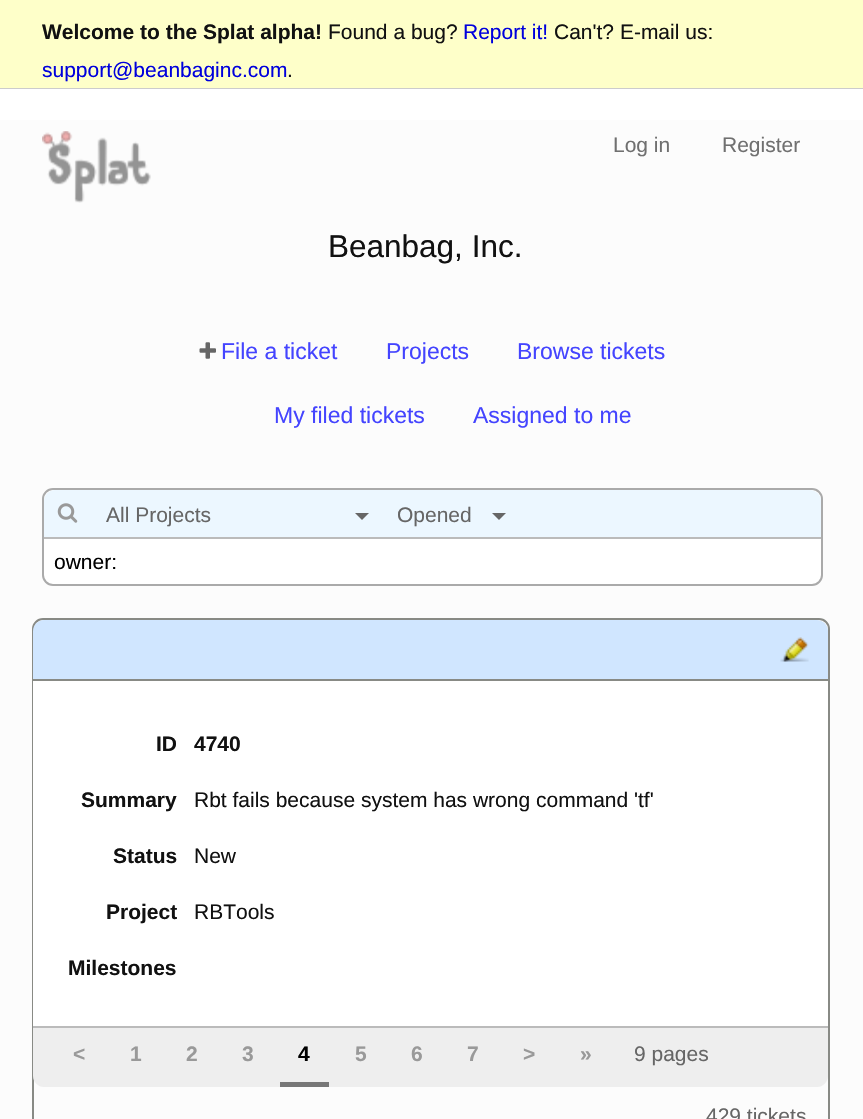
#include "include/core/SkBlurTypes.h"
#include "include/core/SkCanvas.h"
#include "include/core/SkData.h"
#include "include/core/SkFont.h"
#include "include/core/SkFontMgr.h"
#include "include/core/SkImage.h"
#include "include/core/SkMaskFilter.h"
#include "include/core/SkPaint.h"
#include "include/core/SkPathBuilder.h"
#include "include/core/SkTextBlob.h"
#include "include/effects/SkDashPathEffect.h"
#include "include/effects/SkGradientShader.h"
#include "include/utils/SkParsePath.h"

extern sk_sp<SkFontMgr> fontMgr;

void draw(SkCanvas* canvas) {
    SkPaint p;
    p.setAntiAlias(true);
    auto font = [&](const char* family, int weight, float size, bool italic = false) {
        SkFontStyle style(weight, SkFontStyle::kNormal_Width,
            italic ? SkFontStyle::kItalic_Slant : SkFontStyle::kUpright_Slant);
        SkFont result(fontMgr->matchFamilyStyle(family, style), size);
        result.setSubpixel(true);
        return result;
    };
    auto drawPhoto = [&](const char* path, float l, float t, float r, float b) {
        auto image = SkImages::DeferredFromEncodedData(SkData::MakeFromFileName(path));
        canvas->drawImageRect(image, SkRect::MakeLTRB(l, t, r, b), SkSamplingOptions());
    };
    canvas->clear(0xFFFCFCFC);
    p.setColor(0xFFFEFFC9);
    canvas->drawRect(SkRect::MakeLTRB(0, 0, 863, 88), p);
    p.setColor(0xFFCCCCCC);
    canvas->drawRect(SkRect::MakeLTRB(0, 88, 863, 89), p);
    auto font1 = font("Liberation Sans", 700, 21);
    p.setColor(0xFF111111);
    canvas->drawString("Welcome to the Splat alpha!", 42, 39, font1, p);
    auto font2 = font("Liberation Sans", 400, 21);
    canvas->drawString("Found a bug?", 328, 39, font2, p);
    p.setColor(0xFF0000DD);
    canvas->drawString("Report it!", 463, 39, font2, p);
    p.setColor(0xFF111111);
    canvas->drawString("Can't? E-mail us:", 554, 39, font2, p);
    p.setColor(0xFF0000DD);
    canvas->drawString("support@beanbaginc.com", 42, 77, font2, p);
    p.setColor(0xFF111111);
    canvas->drawString(".", 287, 77, font2, p);
    {
        const SkColor colors[] = {0xFFFFFFFF, 0xFFFCFCFC};
        const float stops[] = {0, 1};
        const SkPoint ends[] = {{432, 89}, {432, 277}};
        p.setShader(SkGradientShader::MakeLinear(ends, colors, stops, 2, SkTileMode::kClamp));
        p.setAlpha(255);
    }
    canvas->drawRect(SkRect::MakeLTRB(0, 89, 863, 120), p);
    drawPhoto("media/1.png", 42, 131, 151, 203);
    p.setShader(nullptr);
    p.setColor(0xFF707070);
    canvas->drawString("Log in", 613, 152, font2, p);
    canvas->drawString("Register", 722, 152, font2, p);
    auto font3 = font("Liberation Sans", 400, 31.5f);
    p.setColor(0xFF111111);
    canvas->drawString("Beanbag, Inc.", 328, 257, font3, p);
    drawPhoto("media/2.png", 199, 342, 216, 359);
    auto font4 = font("Liberation Sans", 400, 23);
    p.setColor(0xFF4444FF);
    {
        const struct { const char* s; float x, y; } items[] = {
            {"File a ticket", 221, 359},
            {"Projects", 386, 359},
            {"Browse tickets", 517, 359},
            {"My filed tickets", 274, 423},
            {"Assigned to me", 473, 423},
        };
        for (auto [s, x, y] : items) {
            canvas->drawString(s, x, y, font4, p);
        }
    }
    p.setColor(0xFFFFFFFF);
    canvas->drawRoundRect(SkRect::MakeLTRB(43, 489, 822, 585), 10, 10, p);
    p.setStyle(SkPaint::kStroke_Style);
    p.setStrokeWidth(2);
    p.setColor(0xFFAAAAAA);
    canvas->drawRoundRect(SkRect::MakeLTRB(43, 489, 822, 585), 10, 10, p);
    p.setStyle(SkPaint::kFill_Style);
    p.setColor(0xFFECF7FF);
    canvas->drawPath(SkPathBuilder().moveTo(55, 490).lineTo(810, 490).cubicTo(816, 490, 821, 495, 821, 501).lineTo(821, 539).lineTo(44, 539).lineTo(44, 501).cubicTo(44, 495, 49, 490, 55, 490).close().detach(), p);
    p.setColor(0xFFBBBBBB);
    canvas->drawRect(SkRect::MakeLTRB(44, 537, 821, 539), p);
    drawPhoto("media/3.png", 57, 503, 78, 523);
    p.setColor(0xFF666666);
    canvas->drawString("All Projects", 106, 522, font2, p);
    canvas->drawPath(SkPathBuilder().moveTo(355, 513).lineTo(369, 513).lineTo(362, 520).close().detach(), p);
    canvas->drawString("Opened", 397, 522, font2, p);
    canvas->drawPath(SkPathBuilder().moveTo(492, 513).lineTo(506, 513).lineTo(499, 520).close().detach(), p);
    p.setColor(0xFF000000);
    canvas->drawString("owner:", 54, 569, font2, p);
    p.setStyle(SkPaint::kStroke_Style);
    p.setColor(0xFF888A85);
    canvas->drawRoundRect(SkRect::MakeLTRB(33, 619, 829, 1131), 10, 10, p);
    p.setStyle(SkPaint::kFill_Style);
    p.setColor(0xFFD0E6FF);
    canvas->drawPath(SkPathBuilder().moveTo(44, 620).lineTo(817, 620).cubicTo(823, 620, 828, 625, 828, 631).lineTo(828, 681).lineTo(33, 681).lineTo(33, 631).cubicTo(33, 625, 38, 620, 44, 620).close().detach(), p);
    p.setColor(0xFF888A85);
    canvas->drawRect(SkRect::MakeLTRB(33, 679, 828, 681), p);
    drawPhoto("media/4.png", 780, 637, 809, 662);
    p.setColor(0xFFFFFFFF);
    canvas->drawRect(SkRect::MakeLTRB(33, 681, 828, 1026), p);
    p.setColor(0xFF111111);
    {
        const struct { const char* s; float x, y; } items[] = {
            {"ID", 156, 751},
            {"4740", 194, 751},
            {"Summary", 81, 807},
        };
        for (auto [s, x, y] : items) {
            canvas->drawString(s, x, y, font1, p);
        }
    }
    canvas->drawString("Rbt fails because system has wrong command 'tf'", 194, 807, font2, p);
    canvas->drawString("Status", 113, 863, font1, p);
    canvas->drawString("New", 194, 863, font2, p);
    canvas->drawString("Project", 106, 919, font1, p);
    canvas->drawString("RBTools", 194, 919, font2, p);
    canvas->drawString("Milestones", 68, 975, font1, p);
    p.setColor(0xFFEEEEEE);
    canvas->drawPath(SkPathBuilder().moveTo(33, 1026).lineTo(828, 1026).lineTo(828, 1076).cubicTo(828, 1082, 823, 1087, 817, 1087).lineTo(44, 1087).cubicTo(38, 1087, 33, 1082, 33, 1076).close().detach(), p);
    p.setColor(0xFFBBBBBB);
    canvas->drawRect(SkRect::MakeLTRB(33, 1026, 828, 1028), p);
    p.setColor(0xFF999999);
    {
        const struct { const char* s; float x, y; } items[] = {
            {"<", 73, 1061},
            {"1", 130, 1061},
            {"2", 186, 1061},
            {"3", 242, 1061},
        };
        for (auto [s, x, y] : items) {
            canvas->drawString(s, x, y, font1, p);
        }
    }
    p.setColor(0xFF777777);
    canvas->drawRect(SkRect::MakeLTRB(280, 1082, 329, 1087), p);
    p.setColor(0xFF000000);
    canvas->drawString("4", 298, 1061, font1, p);
    p.setColor(0xFF999999);
    {
        const struct { const char* s; float x, y; } items[] = {
            {"5", 355, 1061},
            {"6", 411, 1061},
            {"7", 467, 1061},
            {">", 523, 1061},
            {"»", 580, 1061},
        };
        for (auto [s, x, y] : items) {
            canvas->drawString(s, x, y, font1, p);
        }
    }
    p.setColor(0xFF666666);
    canvas->drawString("9 pages", 634, 1061, font2, p);
    canvas->drawString("429 tickets", 706, 1123, font2, p);
}
